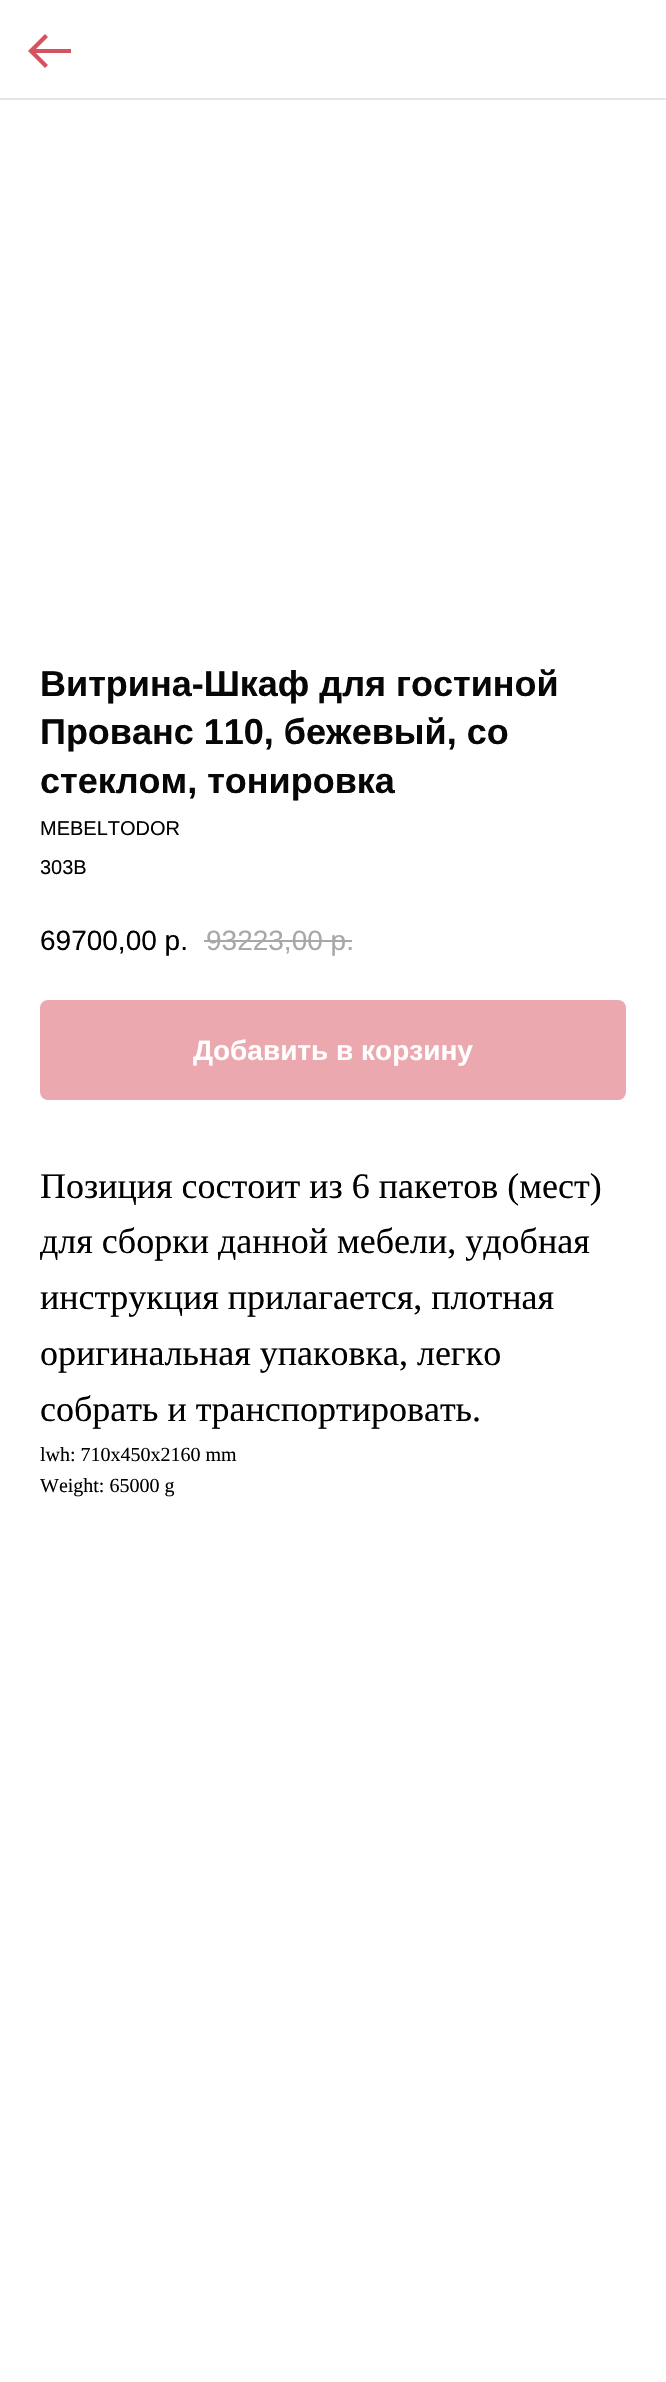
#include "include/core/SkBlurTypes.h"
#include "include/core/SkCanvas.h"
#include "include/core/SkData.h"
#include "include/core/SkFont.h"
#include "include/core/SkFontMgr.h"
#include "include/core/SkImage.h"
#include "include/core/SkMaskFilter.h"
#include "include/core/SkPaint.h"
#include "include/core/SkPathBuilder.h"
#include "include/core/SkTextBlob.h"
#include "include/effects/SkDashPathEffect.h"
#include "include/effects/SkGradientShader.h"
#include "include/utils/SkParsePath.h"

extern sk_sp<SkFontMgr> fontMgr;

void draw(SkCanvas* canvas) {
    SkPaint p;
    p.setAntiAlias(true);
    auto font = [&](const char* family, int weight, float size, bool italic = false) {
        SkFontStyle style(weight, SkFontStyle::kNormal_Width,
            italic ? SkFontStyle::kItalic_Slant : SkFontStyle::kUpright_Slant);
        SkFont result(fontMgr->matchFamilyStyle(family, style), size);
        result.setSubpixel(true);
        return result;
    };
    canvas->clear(0xFFFFFFFF);
    p.setColor(0xFFE6E6E6);
    canvas->drawRect(SkRect::MakeLTRB(0, 98, 666, 100), p);
    p.setColor(0xFFD6525F);
    canvas->drawPath(SkPathBuilder().moveTo(45, 34).lineTo(48, 37).lineTo(36, 49).lineTo(71, 49).lineTo(71, 53).lineTo(36, 53).lineTo(48, 65).lineTo(45, 68).lineTo(28, 51).close().detach(), p);
    auto font1 = font("Liberation Sans", 700, 36);
    p.setColor(0xFF070707);
    {
        const struct { const char* s; float x, y; } items[] = {
            {"Витрина-Шкаф для гостиной", 40, 696},
            {"Прованс 110, бежевый, со", 40, 744},
            {"стеклом, тонировка", 40, 793},
        };
        for (auto [s, x, y] : items) {
            canvas->drawString(s, x, y, font1, p);
        }
    }
    auto font2 = font("Liberation Sans", 400, 20);
    p.setColor(0xFF000000);
    canvas->drawString("MEBELTODOR", 40, 835, font2, p);
    canvas->drawString("303B", 40, 874, font2, p);
    auto font3 = font("Liberation Sans", 400, 28);
    canvas->drawString("69700,00 р.", 40, 950, font3, p);
    p.setColor(0xFFA8A8A8);
    canvas->drawString("93223,00 р.", 206, 950, font3, p);
    canvas->drawRect(SkRect::MakeLTRB(204, 940, 352, 942), p);
    p.setColor(0xFFEBA9AF);
    canvas->drawRoundRect(SkRect::MakeLTRB(40, 1000, 626, 1100), 8, 8, p);
    auto font4 = font("Liberation Sans", 700, 28);
    p.setColor(0xFFFFFFFF);
    canvas->drawString("Добавить в корзину", 193, 1060, font4, p);
    auto font5 = font("Liberation Serif", 400, 36);
    p.setColor(0xFF000000);
    {
        const struct { const char* s; float x, y; } items[] = {
            {"Позиция состоит из 6 пакетов (мест)", 40, 1198},
            {"для сборки данной мебели, удобная", 40, 1253},
            {"инструкция прилагается, плотная", 40, 1309},
            {"оригинальная упаковка, легко", 40, 1365},
            {"собрать и транспортировать.", 40, 1421},
        };
        for (auto [s, x, y] : items) {
            canvas->drawString(s, x, y, font5, p);
        }
    }
    auto font6 = font("Liberation Serif", 400, 20);
    canvas->drawString("lwh: 710x450x2160 mm", 40, 1461, font6, p);
    canvas->drawString("Weight: 65000 g", 40, 1492, font6, p);
}
